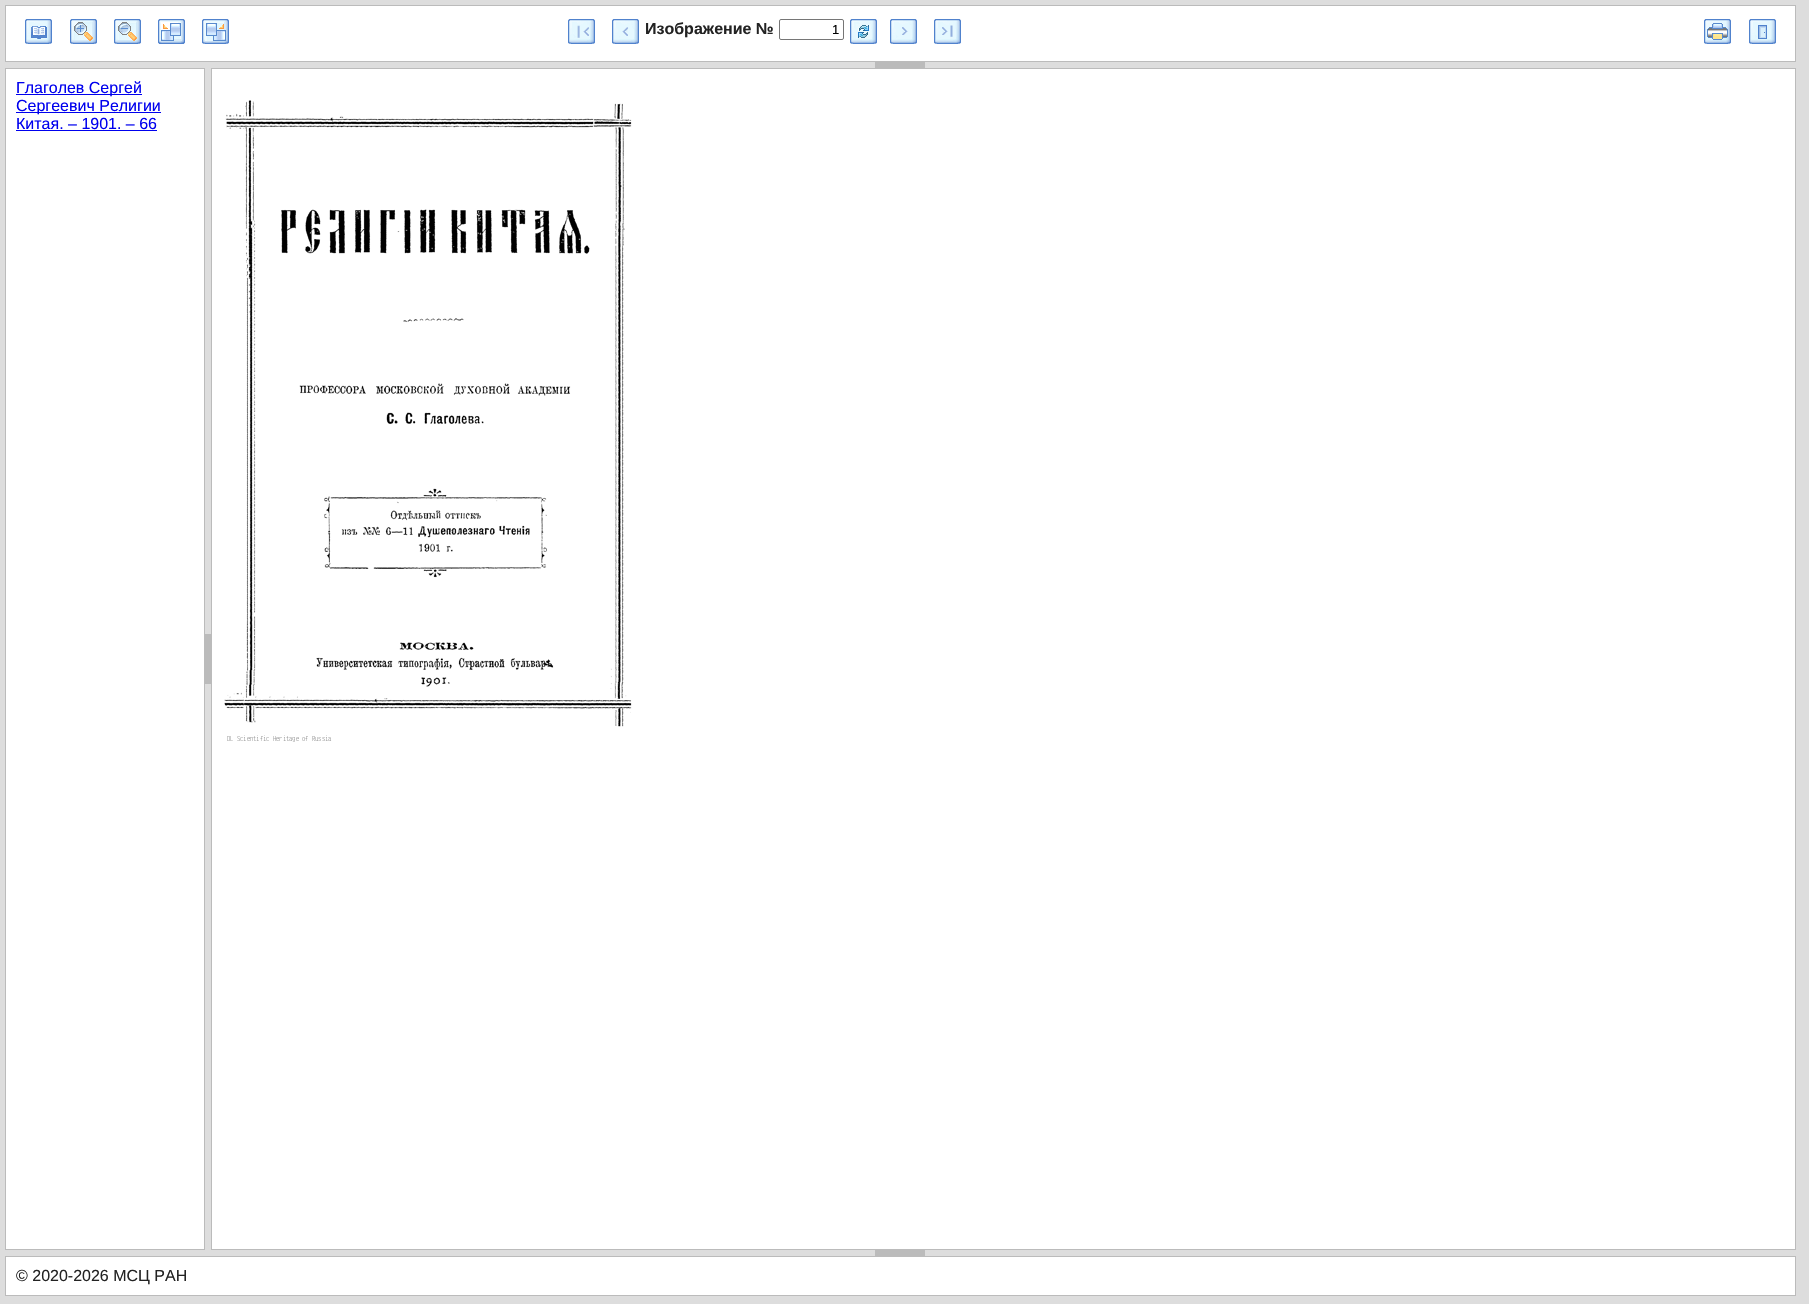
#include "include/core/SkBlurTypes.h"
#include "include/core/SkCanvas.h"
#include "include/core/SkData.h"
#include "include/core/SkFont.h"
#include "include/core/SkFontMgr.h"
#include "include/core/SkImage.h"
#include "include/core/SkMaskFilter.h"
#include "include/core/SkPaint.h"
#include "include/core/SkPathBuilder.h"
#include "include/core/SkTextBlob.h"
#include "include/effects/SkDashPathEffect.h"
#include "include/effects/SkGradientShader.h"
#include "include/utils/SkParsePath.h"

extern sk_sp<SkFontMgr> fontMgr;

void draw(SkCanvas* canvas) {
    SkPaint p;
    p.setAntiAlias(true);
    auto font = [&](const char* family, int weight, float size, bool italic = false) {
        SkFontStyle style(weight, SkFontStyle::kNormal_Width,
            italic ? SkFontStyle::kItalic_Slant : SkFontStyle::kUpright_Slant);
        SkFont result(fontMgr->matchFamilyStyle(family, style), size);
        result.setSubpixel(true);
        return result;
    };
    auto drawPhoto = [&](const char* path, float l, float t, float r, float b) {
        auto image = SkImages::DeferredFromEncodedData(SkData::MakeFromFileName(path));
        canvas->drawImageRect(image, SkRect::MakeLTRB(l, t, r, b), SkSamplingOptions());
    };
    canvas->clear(0xFFDDDDDD);
    p.setColor(0xFFFFFFFF);
    canvas->drawRect(SkRect::MakeLTRB(5.5f, 5.5f, 1795.5f, 61.5f), p);
    p.setStyle(SkPaint::kStroke_Style);
    p.setStrokeWidth(1);
    p.setColor(0xFFBBBBBB);
    canvas->drawRect(SkRect::MakeLTRB(5.5f, 5.5f, 1795.5f, 61.5f), p);
    drawPhoto("media/1.png", 25, 19, 52, 44);
    drawPhoto("media/2.png", 70, 19, 97, 44);
    drawPhoto("media/3.png", 114, 19, 141, 44);
    drawPhoto("media/4.png", 158, 19, 185, 44);
    drawPhoto("media/5.png", 202, 19, 229, 44);
    drawPhoto("media/6.png", 568, 19, 595, 44);
    drawPhoto("media/7.png", 612, 19, 639, 44);
    auto font1 = font("Liberation Sans", 700, 16);
    p.setStyle(SkPaint::kFill_Style);
    p.setColor(0xFF232323);
    canvas->drawString("Изображение №", 645, 34, font1, p);
    p.setStyle(SkPaint::kStroke_Style);
    p.setColor(0xFF767676);
    canvas->drawRoundRect(SkRect::MakeLTRB(779.5f, 19.5f, 843.5f, 39.5f), 1.5f, 1.5f, p);
    auto font2 = font("Liberation Sans", 400, 13);
    p.setStyle(SkPaint::kFill_Style);
    p.setColor(0xFF000000);
    canvas->drawString("1", 832, 34, font2, p);
    drawPhoto("media/8.png", 850, 19, 877, 44);
    drawPhoto("media/9.png", 890, 19, 917, 44);
    drawPhoto("media/10.png", 934, 19, 961, 44);
    drawPhoto("media/11.png", 1704, 19, 1731, 44);
    drawPhoto("media/12.png", 1749, 19, 1776, 44);
    p.setColor(0xFFBBBBBB);
    canvas->drawRect(SkRect::MakeLTRB(875, 62, 925, 68), p);
    p.setColor(0xFFFFFFFF);
    canvas->drawRect(SkRect::MakeLTRB(5.5f, 68.5f, 204.5f, 1249.5f), p);
    p.setStyle(SkPaint::kStroke_Style);
    p.setColor(0xFFBBBBBB);
    canvas->drawRect(SkRect::MakeLTRB(5.5f, 68.5f, 204.5f, 1249.5f), p);
    p.setStyle(SkPaint::kFill_Style);
    p.setColor(0xFF0000EE);
    canvas->drawRect(SkRect::MakeLTRB(16, 94, 142, 95), p);
    auto font3 = font("Liberation Sans", 400, 16);
    canvas->drawString("Глаголев Сергей", 16, 93, font3, p);
    canvas->drawRect(SkRect::MakeLTRB(16, 112, 161, 113), p);
    canvas->drawString("Сергеевич Религии", 16, 111, font3, p);
    canvas->drawString("Китая. – 1901. – 66", 16, 129, font3, p);
    canvas->drawRect(SkRect::MakeLTRB(16, 130, 157, 131), p);
    p.setColor(0xFFFFFFFF);
    canvas->drawRect(SkRect::MakeLTRB(211.5f, 68.5f, 1795.5f, 1249.5f), p);
    p.setStyle(SkPaint::kStroke_Style);
    p.setColor(0xFFBBBBBB);
    canvas->drawRect(SkRect::MakeLTRB(211.5f, 68.5f, 1795.5f, 1249.5f), p);
    drawPhoto("media/13.png", 224, 100, 632, 742);
    p.setStyle(SkPaint::kFill_Style);
    canvas->drawRect(SkRect::MakeLTRB(205, 634, 211, 684), p);
    canvas->drawRect(SkRect::MakeLTRB(875, 1250, 925, 1256), p);
    p.setColor(0xFFFFFFFF);
    canvas->drawRect(SkRect::MakeLTRB(5.5f, 1256.5f, 1795.5f, 1295.5f), p);
    p.setStyle(SkPaint::kStroke_Style);
    p.setColor(0xFFBBBBBB);
    canvas->drawRect(SkRect::MakeLTRB(5.5f, 1256.5f, 1795.5f, 1295.5f), p);
    p.setStyle(SkPaint::kFill_Style);
    p.setColor(0xFF232323);
    canvas->drawString("© 2020-2026 МСЦ РАН", 16, 1281, font3, p);
}
